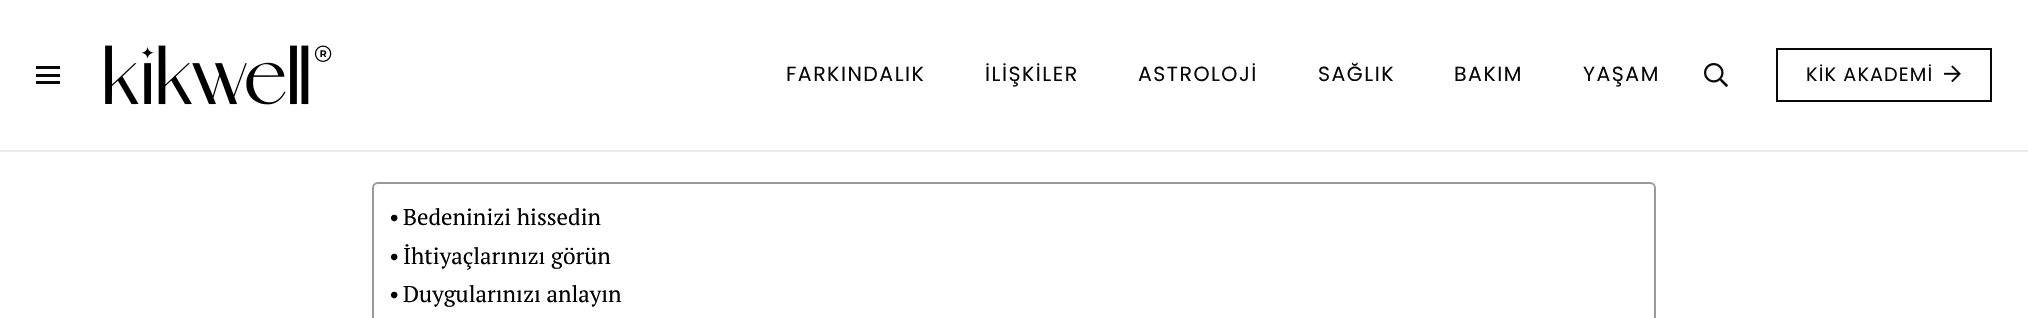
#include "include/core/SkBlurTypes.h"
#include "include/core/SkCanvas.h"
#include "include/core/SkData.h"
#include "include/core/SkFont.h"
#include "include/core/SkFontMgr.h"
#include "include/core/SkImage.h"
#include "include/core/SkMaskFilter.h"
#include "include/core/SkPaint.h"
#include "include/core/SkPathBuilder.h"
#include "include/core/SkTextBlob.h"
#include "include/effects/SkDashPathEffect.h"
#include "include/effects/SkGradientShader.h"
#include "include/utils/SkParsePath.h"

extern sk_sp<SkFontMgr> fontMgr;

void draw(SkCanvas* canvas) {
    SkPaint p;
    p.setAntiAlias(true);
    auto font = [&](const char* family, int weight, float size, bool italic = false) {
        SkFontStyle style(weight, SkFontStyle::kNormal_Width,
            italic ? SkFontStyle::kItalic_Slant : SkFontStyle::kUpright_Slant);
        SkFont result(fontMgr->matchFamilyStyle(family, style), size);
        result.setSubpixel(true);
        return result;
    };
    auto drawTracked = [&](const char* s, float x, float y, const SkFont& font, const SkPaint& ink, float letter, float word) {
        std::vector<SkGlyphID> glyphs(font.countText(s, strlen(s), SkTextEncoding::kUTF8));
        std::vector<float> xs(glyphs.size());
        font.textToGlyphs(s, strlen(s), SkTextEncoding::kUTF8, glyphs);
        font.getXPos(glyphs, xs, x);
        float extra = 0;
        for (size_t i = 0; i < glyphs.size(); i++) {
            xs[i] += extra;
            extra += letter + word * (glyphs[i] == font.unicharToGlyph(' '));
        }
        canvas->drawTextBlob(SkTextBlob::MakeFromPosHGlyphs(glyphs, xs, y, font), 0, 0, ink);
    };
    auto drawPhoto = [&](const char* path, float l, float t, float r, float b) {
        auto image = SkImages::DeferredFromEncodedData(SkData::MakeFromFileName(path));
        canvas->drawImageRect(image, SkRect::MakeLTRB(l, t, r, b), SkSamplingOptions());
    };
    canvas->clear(0xFFFFFFFF);
    {
        const struct { float l, t, r, b; SkColor color; } items[] = {
            {0, 150, 2028, 152, 0xFFEBEBEB},
            {36, 74, 60, 77, 0xFF080808},
            {36, 66, 60, 69, 0xFF080808},
            {36, 81, 60, 84, 0xFF080808},
        };
        for (auto [l, t, r, b, color] : items) {
            p.setColor(color);
            canvas->drawRect(SkRect::MakeLTRB(l, t, r, b), p);
        }
    }
    drawPhoto("media/1.png", 105, 45, 332, 105);
    auto font1 = font("Poppins", 400, 20.5f);
    {
        const struct { const char* s; float x, y; } items[] = {
            {"FARKINDALIK", 786, 81},
            {"İLİŞKİLER", 985, 81},
            {"ASTROLOJİ", 1138, 81},
            {"SAĞLIK", 1318, 81},
            {"BAKIM", 1454, 81},
            {"YAŞAM", 1583, 81},
        };
        for (auto [s, x, y] : items) {
            drawTracked(s, x, y, font1, p, 1.5f, 0);
        }
    }
    drawPhoto("media/2.png", 1704, 63, 1728, 87);
    drawPhoto("media/3.png", 1944, 65, 1961, 83);
    p.setStyle(SkPaint::kStroke_Style);
    p.setStrokeWidth(2);
    canvas->drawRect(SkRect::MakeLTRB(1777, 49, 1991, 101), p);
    auto font2 = font("Poppins", 400, 19.25f);
    p.setStyle(SkPaint::kFill_Style);
    drawTracked("KİK AKADEMİ", 1806, 81, font2, p, 1.1f, 0);
    p.setStyle(SkPaint::kStroke_Style);
    p.setColor(0xFF999999);
    canvas->drawRoundRect(SkRect::MakeLTRB(373, 183, 1655, 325), 5, 5, p);
    auto font3 = font("PT Serif", 400, 22.75f);
    p.setStyle(SkPaint::kFill_Style);
    p.setColor(0xFF000000);
    {
        const struct { const char* s; float x, y; } items[] = {
            {"•", 389, 225},
            {"Bedeninizi hissedin", 403, 225},
            {"•", 389, 264},
            {"İhtiyaçlarınızı görün", 403, 264},
            {"•", 389, 302},
            {"Duygularınızı anlayın", 403, 302},
        };
        for (auto [s, x, y] : items) {
            canvas->drawString(s, x, y, font3, p);
        }
    }
}
